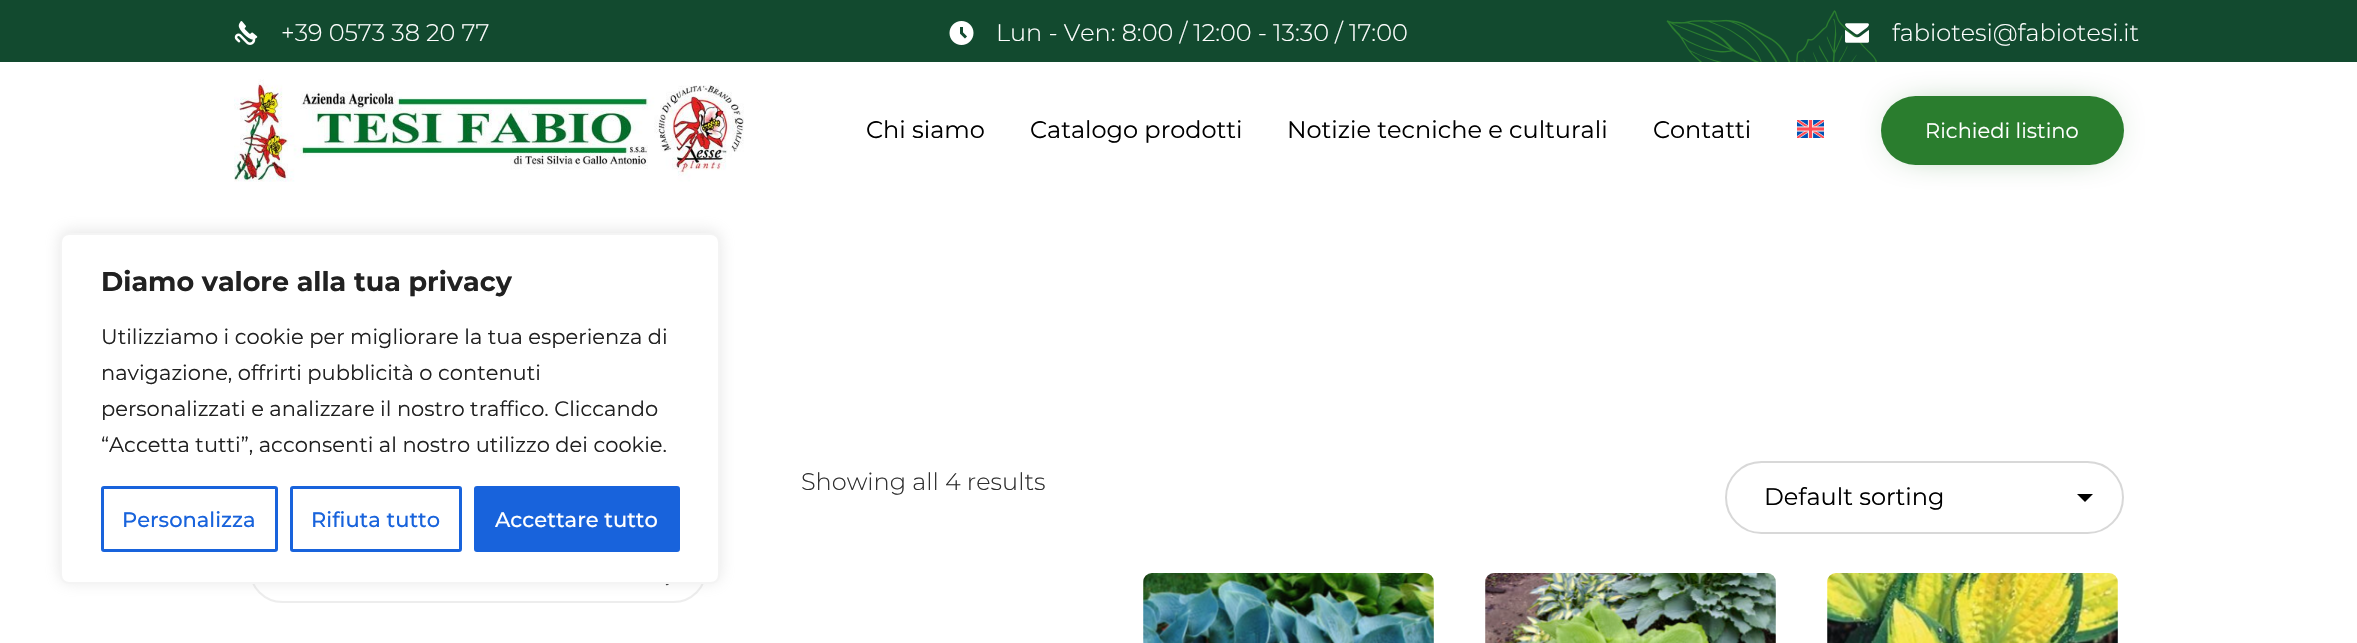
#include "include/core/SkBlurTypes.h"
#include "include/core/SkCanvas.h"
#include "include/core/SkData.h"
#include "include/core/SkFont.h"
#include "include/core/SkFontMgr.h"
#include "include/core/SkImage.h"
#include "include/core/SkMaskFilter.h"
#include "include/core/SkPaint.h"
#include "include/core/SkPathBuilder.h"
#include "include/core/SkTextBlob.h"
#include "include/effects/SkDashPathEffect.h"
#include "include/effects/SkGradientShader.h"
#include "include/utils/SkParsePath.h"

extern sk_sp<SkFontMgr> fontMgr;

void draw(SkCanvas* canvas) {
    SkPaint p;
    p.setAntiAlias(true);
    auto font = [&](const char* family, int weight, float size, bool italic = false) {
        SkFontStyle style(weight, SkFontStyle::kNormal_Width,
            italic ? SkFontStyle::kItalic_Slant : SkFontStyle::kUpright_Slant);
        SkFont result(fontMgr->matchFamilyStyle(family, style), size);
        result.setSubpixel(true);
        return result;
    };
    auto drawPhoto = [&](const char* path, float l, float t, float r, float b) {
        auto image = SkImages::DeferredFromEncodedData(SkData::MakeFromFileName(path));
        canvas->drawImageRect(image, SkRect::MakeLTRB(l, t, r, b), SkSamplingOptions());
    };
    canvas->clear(0xFFFFFFFF);
    p.setColor(0xFF2A7D2E);
    p.setMaskFilter(SkMaskFilter::MakeBlur(kNormal_SkBlurStyle, 19));
    canvas->drawRoundRect(SkRect::MakeLTRB(1902, 117, 2103, 144), 13.5f, 13.5f, p);
    p.setMaskFilter(nullptr);
    p.setColor(0xFF124A2F);
    canvas->drawRect(SkRect::MakeLTRB(0, 0, 2357, 62), p);
    drawPhoto("media/1.png", 1666, 10, 1877, 62);
    drawPhoto("media/2.png", 234, 21, 258, 45);
    auto font1 = font("Montserrat", 300, 24);
    p.setColor(0xFFFFFFFF);
    canvas->drawString("+39 0573 38 20 77", 281, 41, font1, p);
    drawPhoto("media/3.png", 949, 21, 974, 45);
    canvas->drawString("Lun - Ven: 8:00 / 12:00 - 13:30 / 17:00", 996, 41, font1, p);
    drawPhoto("media/4.png", 1845, 23, 1869, 43);
    canvas->drawString("fabiotesi@fabiotesi.it", 1892, 41, font1, p);
    drawPhoto("media/5.png", 234, 79, 744, 182);
    auto font2 = font("Montserrat", 400, 24);
    p.setColor(0xFF000000);
    {
        const struct { const char* s; float x, y; } items[] = {
            {"Chi siamo", 866, 138},
            {"Catalogo prodotti", 1030, 138},
            {"Notizie tecniche e culturali", 1287, 138},
            {"Contatti", 1653, 138},
        };
        for (auto [s, x, y] : items) {
            canvas->drawString(s, x, y, font2, p);
        }
    }
    drawPhoto("media/6.png", 1797, 120, 1824, 138);
    p.setColor(0xFF2A7D2E);
    canvas->drawRoundRect(SkRect::MakeLTRB(1881, 96, 2124, 165), 34.5f, 34.5f, p);
    auto font3 = font("Montserrat", 400, 21);
    p.setColor(0xFFFFFFFF);
    canvas->drawString("Richiedi listino", 1925, 138, font3, p);
    p.setStyle(SkPaint::kStroke_Style);
    p.setStrokeWidth(2);
    p.setColor(0xFFEDEDED);
    canvas->drawRoundRect(SkRect::MakeLTRB(250, 537, 706, 602), 32.5f, 32.5f, p);
    drawPhoto("media/10.png", 665, 584, 669, 586);
    p.setStyle(SkPaint::kFill_Style);
    p.setColor(0x4DACABAB);
    p.setMaskFilter(SkMaskFilter::MakeBlur(kNormal_SkBlurStyle, 7.5f));
    canvas->drawRoundRect(SkRect::MakeLTRB(60, 231, 720, 582), 9, 9, p);
    p.setMaskFilter(nullptr);
    p.setColor(0xFFFFFFFF);
    canvas->drawRoundRect(SkRect::MakeLTRB(61, 234, 719, 583), 8, 8, p);
    p.setStyle(SkPaint::kStroke_Style);
    p.setColor(0xFFF4F4F4);
    canvas->drawRoundRect(SkRect::MakeLTRB(61, 234, 719, 583), 8, 8, p);
    auto font4 = font("Montserrat", 700, 27);
    p.setStyle(SkPaint::kFill_Style);
    p.setColor(0xFF212121);
    canvas->drawString("Diamo valore alla tua privacy", 101, 291, font4, p);
    {
        const struct { const char* s; float x, y; } items[] = {
            {"Utilizziamo i cookie per migliorare la tua esperienza di", 101, 344},
            {"navigazione, offrirti pubblicità o contenuti", 101, 380},
            {"personalizzati e analizzare il nostro traffico. Cliccando", 101, 416},
            {"“Accetta tutti”, acconsenti al nostro utilizzo dei cookie.", 101, 452},
        };
        for (auto [s, x, y] : items) {
            canvas->drawString(s, x, y, font3, p);
        }
    }
    p.setStyle(SkPaint::kStroke_Style);
    p.setStrokeWidth(3);
    p.setColor(0xFF1863DC);
    canvas->drawRoundRect(SkRect::MakeLTRB(102.5f, 487.5f, 276.5f, 550.5f), 1.5f, 1.5f, p);
    auto font5 = font("Montserrat", 500, 21);
    p.setStyle(SkPaint::kFill_Style);
    canvas->drawString("Personalizza", 122, 527, font5, p);
    p.setStyle(SkPaint::kStroke_Style);
    canvas->drawRoundRect(SkRect::MakeLTRB(291.5f, 487.5f, 460.5f, 550.5f), 1.5f, 1.5f, p);
    p.setStyle(SkPaint::kFill_Style);
    canvas->drawString("Rifiuta tutto", 311, 527, font5, p);
    canvas->drawRoundRect(SkRect::MakeLTRB(475.5f, 487.5f, 678.5f, 550.5f), 1.5f, 1.5f, p);
    p.setStyle(SkPaint::kStroke_Style);
    canvas->drawRoundRect(SkRect::MakeLTRB(475.5f, 487.5f, 678.5f, 550.5f), 1.5f, 1.5f, p);
    p.setStyle(SkPaint::kFill_Style);
    p.setColor(0xFFFFFFFF);
    canvas->drawString("Accettare tutto", 495, 527, font5, p);
    p.setColor(0xFF2F2F2F);
    canvas->drawString("Showing all 4 results", 801, 490, font1, p);
    p.setColor(0xFF000000);
    canvas->drawPath(SkPathBuilder().moveTo(2077, 494).lineTo(2085, 502).lineTo(2093, 494).close().detach(), p);
    p.setStyle(SkPaint::kStroke_Style);
    p.setStrokeWidth(2);
    p.setColor(0xFFD8D8D8);
    canvas->drawRoundRect(SkRect::MakeLTRB(1726, 462, 2123, 533), 35.5f, 35.5f, p);
    p.setStyle(SkPaint::kFill_Style);
    p.setColor(0xFF000000);
    canvas->drawString("Default sorting", 1764, 505, font2, p);
    drawPhoto("media/7.png", 1143, 573, 1434, 643);
    drawPhoto("media/8.png", 1485, 573, 1776, 643);
    drawPhoto("media/9.png", 1827, 573, 2118, 643);
}
